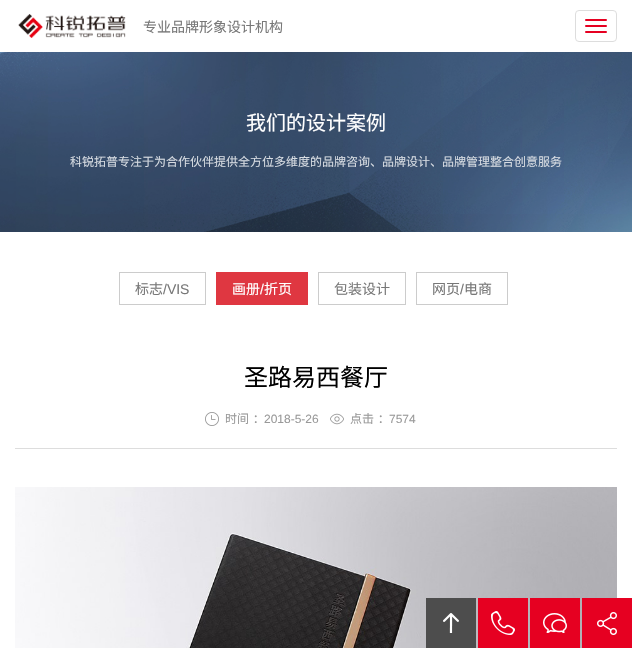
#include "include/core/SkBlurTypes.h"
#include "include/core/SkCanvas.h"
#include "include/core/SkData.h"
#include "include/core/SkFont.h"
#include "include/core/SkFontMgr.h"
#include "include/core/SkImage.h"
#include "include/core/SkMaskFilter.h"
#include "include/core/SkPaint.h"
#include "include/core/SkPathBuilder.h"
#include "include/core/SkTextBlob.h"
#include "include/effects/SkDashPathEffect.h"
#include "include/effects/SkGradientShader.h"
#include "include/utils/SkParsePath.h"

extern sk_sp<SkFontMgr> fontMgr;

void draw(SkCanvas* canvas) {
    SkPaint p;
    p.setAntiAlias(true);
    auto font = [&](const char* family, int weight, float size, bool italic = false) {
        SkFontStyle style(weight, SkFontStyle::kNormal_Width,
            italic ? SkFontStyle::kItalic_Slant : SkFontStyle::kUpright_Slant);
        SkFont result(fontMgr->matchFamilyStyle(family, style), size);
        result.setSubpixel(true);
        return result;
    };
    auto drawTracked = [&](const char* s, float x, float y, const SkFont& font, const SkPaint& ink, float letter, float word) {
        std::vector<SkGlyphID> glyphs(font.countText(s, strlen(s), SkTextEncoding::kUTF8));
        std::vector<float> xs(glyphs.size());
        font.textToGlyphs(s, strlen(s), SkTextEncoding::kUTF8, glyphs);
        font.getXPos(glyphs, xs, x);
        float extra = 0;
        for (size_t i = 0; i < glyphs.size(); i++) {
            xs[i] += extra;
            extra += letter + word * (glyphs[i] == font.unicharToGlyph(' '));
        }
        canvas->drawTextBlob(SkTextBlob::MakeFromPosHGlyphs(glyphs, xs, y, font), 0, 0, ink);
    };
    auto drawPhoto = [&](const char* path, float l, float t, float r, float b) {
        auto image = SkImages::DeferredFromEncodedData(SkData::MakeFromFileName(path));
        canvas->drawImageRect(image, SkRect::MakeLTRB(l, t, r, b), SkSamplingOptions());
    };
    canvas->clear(0xFFFFFFFF);
    drawPhoto("media/1.png", 18, 14, 126, 38);
    auto font1 = font("Noto Sans CJK SC", 400, 14);
    p.setColor(0xFF777777);
    canvas->drawString("专业品牌形象设计机构", 143, 32, font1, p);
    p.setStyle(SkPaint::kStroke_Style);
    p.setStrokeWidth(1);
    p.setColor(0xFFDDDDDD);
    canvas->drawRoundRect(SkRect::MakeLTRB(575.5f, 10.5f, 616.5f, 41.5f), 3.5f, 3.5f, p);
    p.setStyle(SkPaint::kFill_Style);
    p.setColor(0xFFE60021);
    canvas->drawRoundRect(SkRect::MakeLTRB(585, 19, 607, 21), 1, 1, p);
    canvas->drawRoundRect(SkRect::MakeLTRB(585, 25, 607, 27), 1, 1, p);
    canvas->drawRoundRect(SkRect::MakeLTRB(585, 31, 607, 33), 1, 1, p);
    drawPhoto("media/2.png", 0, 52, 632, 232);
    auto font2 = font("Noto Sans CJK SC", 400, 20);
    p.setColor(0xFFFFFFFF);
    canvas->drawString("我们的设计案例", 246, 130, font2, p);
    auto font3 = font("Noto Sans CJK SC", 400, 12);
    p.setColor(0xFFD7DCE2);
    canvas->drawString("科锐拓普专注于为合作伙伴提供全方位多维度的品牌咨询、品牌设计、品牌管理整合创意服务", 70, 166, font3, p);
    p.setStyle(SkPaint::kStroke_Style);
    p.setColor(0xFFCCCCCC);
    canvas->drawRect(SkRect::MakeLTRB(119.5f, 272.5f, 205.5f, 304.5f), p);
    p.setStyle(SkPaint::kFill_Style);
    p.setColor(0xFF777777);
    canvas->drawString("标志", 135, 294, font1, p);
    auto font4 = font("Liberation Sans", 400, 14);
    canvas->drawString("/VIS", 163, 294, font4, p);
    p.setColor(0xFFDF3741);
    canvas->drawRect(SkRect::MakeLTRB(216, 272, 308, 305), p);
    p.setColor(0xFFFFFFFF);
    canvas->drawString("画册", 232, 294, font1, p);
    canvas->drawString("/", 260, 294, font4, p);
    canvas->drawString("折页", 264, 294, font1, p);
    p.setStyle(SkPaint::kStroke_Style);
    p.setColor(0xFFCCCCCC);
    canvas->drawRect(SkRect::MakeLTRB(318.5f, 272.5f, 405.5f, 304.5f), p);
    p.setStyle(SkPaint::kFill_Style);
    p.setColor(0xFF777777);
    canvas->drawString("包装设计", 334, 294, font1, p);
    p.setStyle(SkPaint::kStroke_Style);
    p.setColor(0xFFCCCCCC);
    canvas->drawRect(SkRect::MakeLTRB(416.5f, 272.5f, 507.5f, 304.5f), p);
    p.setStyle(SkPaint::kFill_Style);
    p.setColor(0xFF777777);
    canvas->drawString("网页", 432, 294, font1, p);
    canvas->drawString("/", 460, 294, font4, p);
    canvas->drawString("电商", 464, 294, font1, p);
    auto font5 = font("Noto Sans CJK SC", 400, 24);
    p.setColor(0xFF000000);
    canvas->drawString("圣路易西餐厅", 244, 386, font5, p);
    p.setColor(0xFFDDDDDD);
    canvas->drawRect(SkRect::MakeLTRB(15, 448, 617, 449), p);
    drawPhoto("media/3.png", 205, 412, 219, 426);
    p.setColor(0xFF999999);
    drawTracked("时间 ：", 225, 423, font3, p, 0, 1);
    auto font6 = font("Liberation Sans", 400, 12);
    canvas->drawString("2018-5-26", 264, 423, font6, p);
    drawPhoto("media/4.png", 330, 413, 344, 425);
    drawTracked("点击 ：", 350, 423, font3, p, 0, 1);
    canvas->drawString("7574", 389, 423, font6, p);
    drawPhoto("media/5.png", 15, 487, 617, 648);
    p.setColor(0xFF4D4D4D);
    canvas->drawRect(SkRect::MakeLTRB(426, 598, 476, 648), p);
    drawPhoto("media/6.png", 443, 613, 459, 633);
    p.setColor(0xFFE60021);
    canvas->drawRect(SkRect::MakeLTRB(478, 598, 528, 648), p);
    drawPhoto("media/7.png", 491, 611, 515, 635);
    canvas->drawRect(SkRect::MakeLTRB(530, 598, 580, 648), p);
    drawPhoto("media/8.png", 543, 613, 567, 633);
    canvas->drawRect(SkRect::MakeLTRB(582, 598, 632, 648), p);
    drawPhoto("media/9.png", 597, 612, 617, 635);
}
